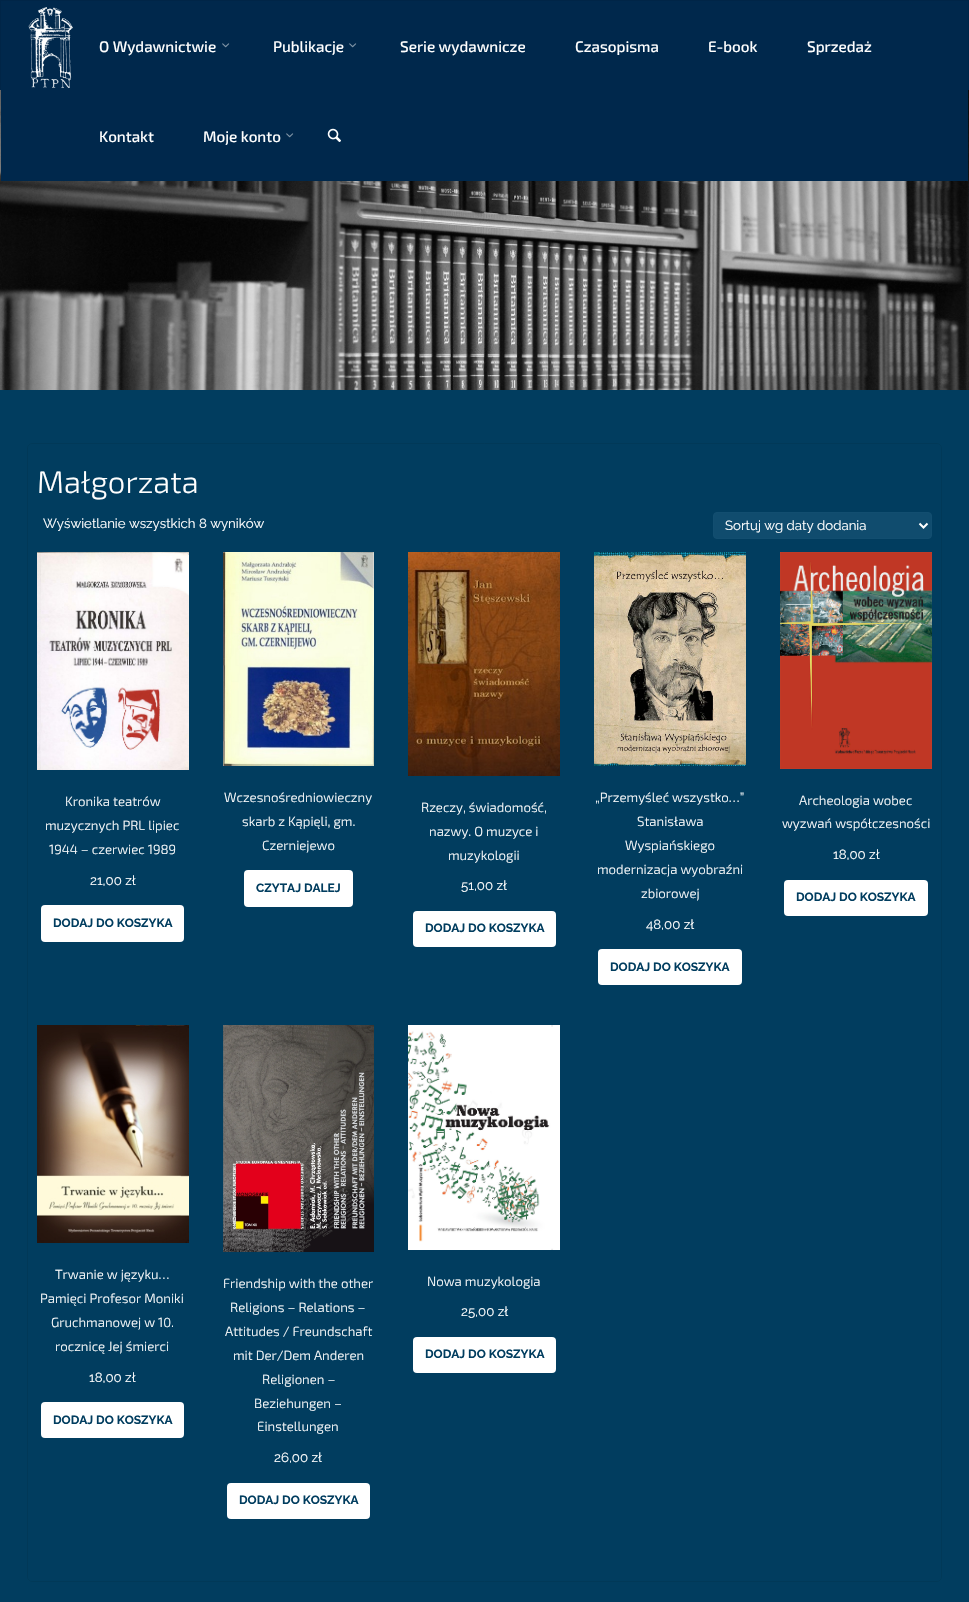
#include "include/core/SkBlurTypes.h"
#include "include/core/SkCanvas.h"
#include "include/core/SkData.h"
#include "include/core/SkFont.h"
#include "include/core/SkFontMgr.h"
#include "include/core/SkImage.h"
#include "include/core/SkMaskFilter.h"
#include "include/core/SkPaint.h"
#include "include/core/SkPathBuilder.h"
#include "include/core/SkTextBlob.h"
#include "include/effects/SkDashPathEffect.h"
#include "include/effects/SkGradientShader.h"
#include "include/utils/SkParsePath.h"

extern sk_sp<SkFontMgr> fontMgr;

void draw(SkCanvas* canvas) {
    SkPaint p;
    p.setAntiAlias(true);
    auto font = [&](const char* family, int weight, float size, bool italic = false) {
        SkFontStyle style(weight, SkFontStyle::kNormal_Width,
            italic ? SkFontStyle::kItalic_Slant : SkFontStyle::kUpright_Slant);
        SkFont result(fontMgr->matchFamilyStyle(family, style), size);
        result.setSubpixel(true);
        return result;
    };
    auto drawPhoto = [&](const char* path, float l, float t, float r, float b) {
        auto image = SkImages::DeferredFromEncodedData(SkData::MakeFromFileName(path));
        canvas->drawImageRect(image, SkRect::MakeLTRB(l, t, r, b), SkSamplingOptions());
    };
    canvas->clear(0xFFFFFFFF);
    p.setStyle(SkPaint::kStroke_Style);
    p.setStrokeWidth(1);
    p.setColor(0xFF002547);
    canvas->drawRect(SkRect::MakeLTRB(0.5f, 0.5f, 968.5f, 89.5f), p);
    drawPhoto("media/4.png", 0, 90, 969, 390);
    p.setStyle(SkPaint::kFill_Style);
    p.setColor(0xFF00284C);
    canvas->drawRect(SkRect::MakeLTRB(1, 1, 968, 181), p);
    drawPhoto("media/1.png", 28, 7, 73, 88);
    auto font1 = font("Exo 2", 500, 15.25f);
    p.setColor(0xFFFFFFFF);
    canvas->drawString("O Wydawnictwie", 99, 52, font1, p);
    drawPhoto("media/2.png", 222, 43, 230, 48);
    canvas->drawString("Publikacje", 273, 52, font1, p);
    drawPhoto("media/2.png", 349, 43, 357, 48);
    {
        const struct { const char* s; float x, y; } items[] = {
            {"Serie wydawnicze", 400, 52},
            {"Czasopisma", 575, 52},
            {"E-book", 708, 52},
            {"Sprzedaż", 807, 52},
            {"Kontakt", 99, 142},
            {"Moje konto", 203, 142},
        };
        for (auto [s, x, y] : items) {
            canvas->drawString(s, x, y, font1, p);
        }
    }
    drawPhoto("media/2.png", 286, 133, 294, 138);
    drawPhoto("media/3.png", 327, 128, 341, 142);
    p.setColor(0xFF013D5F);
    canvas->drawRect(SkRect::MakeLTRB(0, 390, 969, 1602), p);
    p.setStyle(SkPaint::kStroke_Style);
    p.setColor(0xFF013958);
    canvas->drawRoundRect(SkRect::MakeLTRB(27.5f, 443.5f, 941.5f, 1581.5f), 4.5f, 4.5f, p);
    auto font2 = font("Exo 2", 300, 31);
    p.setStyle(SkPaint::kFill_Style);
    p.setColor(0xFFFFFFFF);
    canvas->drawString("Małgorzata", 37, 493, font2, p);
    auto font3 = font("Raleway", 400, 13.25f);
    canvas->drawString("Wyświetlanie wszystkich 8 wyników", 43, 528, font3, p);
    p.setColor(0xFF104C6E);
    canvas->drawRoundRect(SkRect::MakeLTRB(713.5f, 512.5f, 931.5f, 538.5f), 3.5f, 3.5f, p);
    p.setStyle(SkPaint::kStroke_Style);
    p.setColor(0xFF124E70);
    canvas->drawRoundRect(SkRect::MakeLTRB(713.5f, 512.5f, 931.5f, 538.5f), 3.5f, 3.5f, p);
    p.setStrokeWidth(2);
    p.setColor(0xFFFFFFFF);
    canvas->drawPath(SkPathBuilder().moveTo(919.5f, 523.5f).lineTo(923.5f, 527.5f).lineTo(927.5f, 523.5f).detach(), p);
    p.setStyle(SkPaint::kFill_Style);
    canvas->drawString("Sortuj wg daty dodania", 725, 530, font3, p);
    drawPhoto("media/5.png", 37, 552, 189, 770);
    auto font4 = font("Exo 2", 300, 13.25f);
    {
        const struct { const char* s; float x, y; } items[] = {
            {"Kronika teatrów", 65, 806},
            {"muzycznych PRL lipiec", 45, 830},
            {"1944 – czerwiec 1989", 49, 854},
        };
        for (auto [s, x, y] : items) {
            canvas->drawString(s, x, y, font4, p);
        }
    }
    canvas->drawString("21,00 zł", 90, 885, font3, p);
    canvas->drawRoundRect(SkRect::MakeLTRB(41, 905, 184, 942), 4, 4, p);
    auto font5 = font("Raleway", 700, 12);
    p.setColor(0xFF013D5F);
    canvas->drawString("DODAJ DO KOSZYKA", 53, 927, font5, p);
    drawPhoto("media/6.png", 223, 552, 374, 766);
    p.setColor(0xFFFFFFFF);
    {
        const struct { const char* s; float x, y; } items[] = {
            {"Wczesnośredniowieczny", 224, 802},
            {"skarb z Kąpięli, gm.", 242, 826},
            {"Czerniejewo", 262, 850},
        };
        for (auto [s, x, y] : items) {
            canvas->drawString(s, x, y, font4, p);
        }
    }
    canvas->drawRoundRect(SkRect::MakeLTRB(244, 870, 353, 907), 4, 4, p);
    p.setColor(0xFF013D5F);
    canvas->drawString("CZYTAJ DALEJ", 256, 892, font5, p);
    drawPhoto("media/7.png", 408, 552, 560, 776);
    p.setColor(0xFFFFFFFF);
    {
        const struct { const char* s; float x, y; } items[] = {
            {"Rzeczy, świadomość,", 421, 812},
            {"nazwy. O muzyce i", 429, 836},
            {"muzykologii", 448, 860},
        };
        for (auto [s, x, y] : items) {
            canvas->drawString(s, x, y, font4, p);
        }
    }
    canvas->drawString("51,00 zł", 461, 890, font3, p);
    canvas->drawRoundRect(SkRect::MakeLTRB(413, 911, 556, 947), 4, 4, p);
    p.setColor(0xFF013D5F);
    canvas->drawString("DODAJ DO KOSZYKA", 425, 932, font5, p);
    drawPhoto("media/8.png", 594, 552, 746, 766);
    p.setColor(0xFFFFFFFF);
    {
        const struct { const char* s; float x, y; } items[] = {
            {"„Przemyśleć wszystko…”", 595, 802},
            {"Stanisława", 637, 826},
            {"Wyspiańskiego", 625, 850},
            {"modernizacja wyobraźni", 597, 874},
            {"zbiorowej", 641, 898},
        };
        for (auto [s, x, y] : items) {
            canvas->drawString(s, x, y, font4, p);
        }
    }
    canvas->drawString("48,00 zł", 646, 929, font3, p);
    canvas->drawRoundRect(SkRect::MakeLTRB(598, 949, 742, 985), 4, 4, p);
    p.setColor(0xFF013D5F);
    canvas->drawString("DODAJ DO KOSZYKA", 610, 971, font5, p);
    drawPhoto("media/9.png", 780, 552, 932, 769);
    p.setColor(0xFFFFFFFF);
    canvas->drawString("Archeologia wobec", 799, 805, font4, p);
    canvas->drawString("wyzwań współczesności", 782, 828, font4, p);
    canvas->drawString("18,00 zł", 833, 859, font3, p);
    canvas->drawRoundRect(SkRect::MakeLTRB(784, 880, 928, 916), 4, 4, p);
    p.setColor(0xFF013D5F);
    canvas->drawString("DODAJ DO KOSZYKA", 796, 901, font5, p);
    drawPhoto("media/10.png", 37, 1025, 189, 1243);
    p.setColor(0xFFFFFFFF);
    {
        const struct { const char* s; float x, y; } items[] = {
            {"Trwanie w języku…", 55, 1279},
            {"Pamięci Profesor Moniki", 40, 1303},
            {"Gruchmanowej w 10.", 51, 1327},
            {"rocznicę Jej śmierci", 55, 1351},
        };
        for (auto [s, x, y] : items) {
            canvas->drawString(s, x, y, font4, p);
        }
    }
    canvas->drawString("18,00 zł", 89, 1382, font3, p);
    canvas->drawRoundRect(SkRect::MakeLTRB(41, 1402, 184, 1438), 4, 4, p);
    p.setColor(0xFF013D5F);
    canvas->drawString("DODAJ DO KOSZYKA", 53, 1424, font5, p);
    drawPhoto("media/11.png", 223, 1025, 374, 1252);
    p.setColor(0xFFFFFFFF);
    {
        const struct { const char* s; float x, y; } items[] = {
            {"Friendship with the other", 223, 1288},
            {"Religions – Relations –", 230, 1312},
            {"Attitudes / Freundschaft", 225, 1336},
            {"mit Der/Dem Anderen", 233, 1360},
            {"Religionen –", 262, 1384},
            {"Beziehungen –", 254, 1408},
            {"Einstellungen", 257, 1431},
        };
        for (auto [s, x, y] : items) {
            canvas->drawString(s, x, y, font4, p);
        }
    }
    canvas->drawString("26,00 zł", 274, 1462, font3, p);
    canvas->drawRoundRect(SkRect::MakeLTRB(227, 1483, 370, 1519), 4, 4, p);
    p.setColor(0xFF013D5F);
    canvas->drawString("DODAJ DO KOSZYKA", 239, 1504, font5, p);
    drawPhoto("media/12.png", 408, 1025, 560, 1250);
    p.setColor(0xFFFFFFFF);
    canvas->drawString("Nowa muzykologia", 427, 1286, font4, p);
    canvas->drawString("25,00 zł", 461, 1316, font3, p);
    canvas->drawRoundRect(SkRect::MakeLTRB(413, 1337, 556, 1373), 4, 4, p);
    p.setColor(0xFF013D5F);
    canvas->drawString("DODAJ DO KOSZYKA", 425, 1358, font5, p);
}
